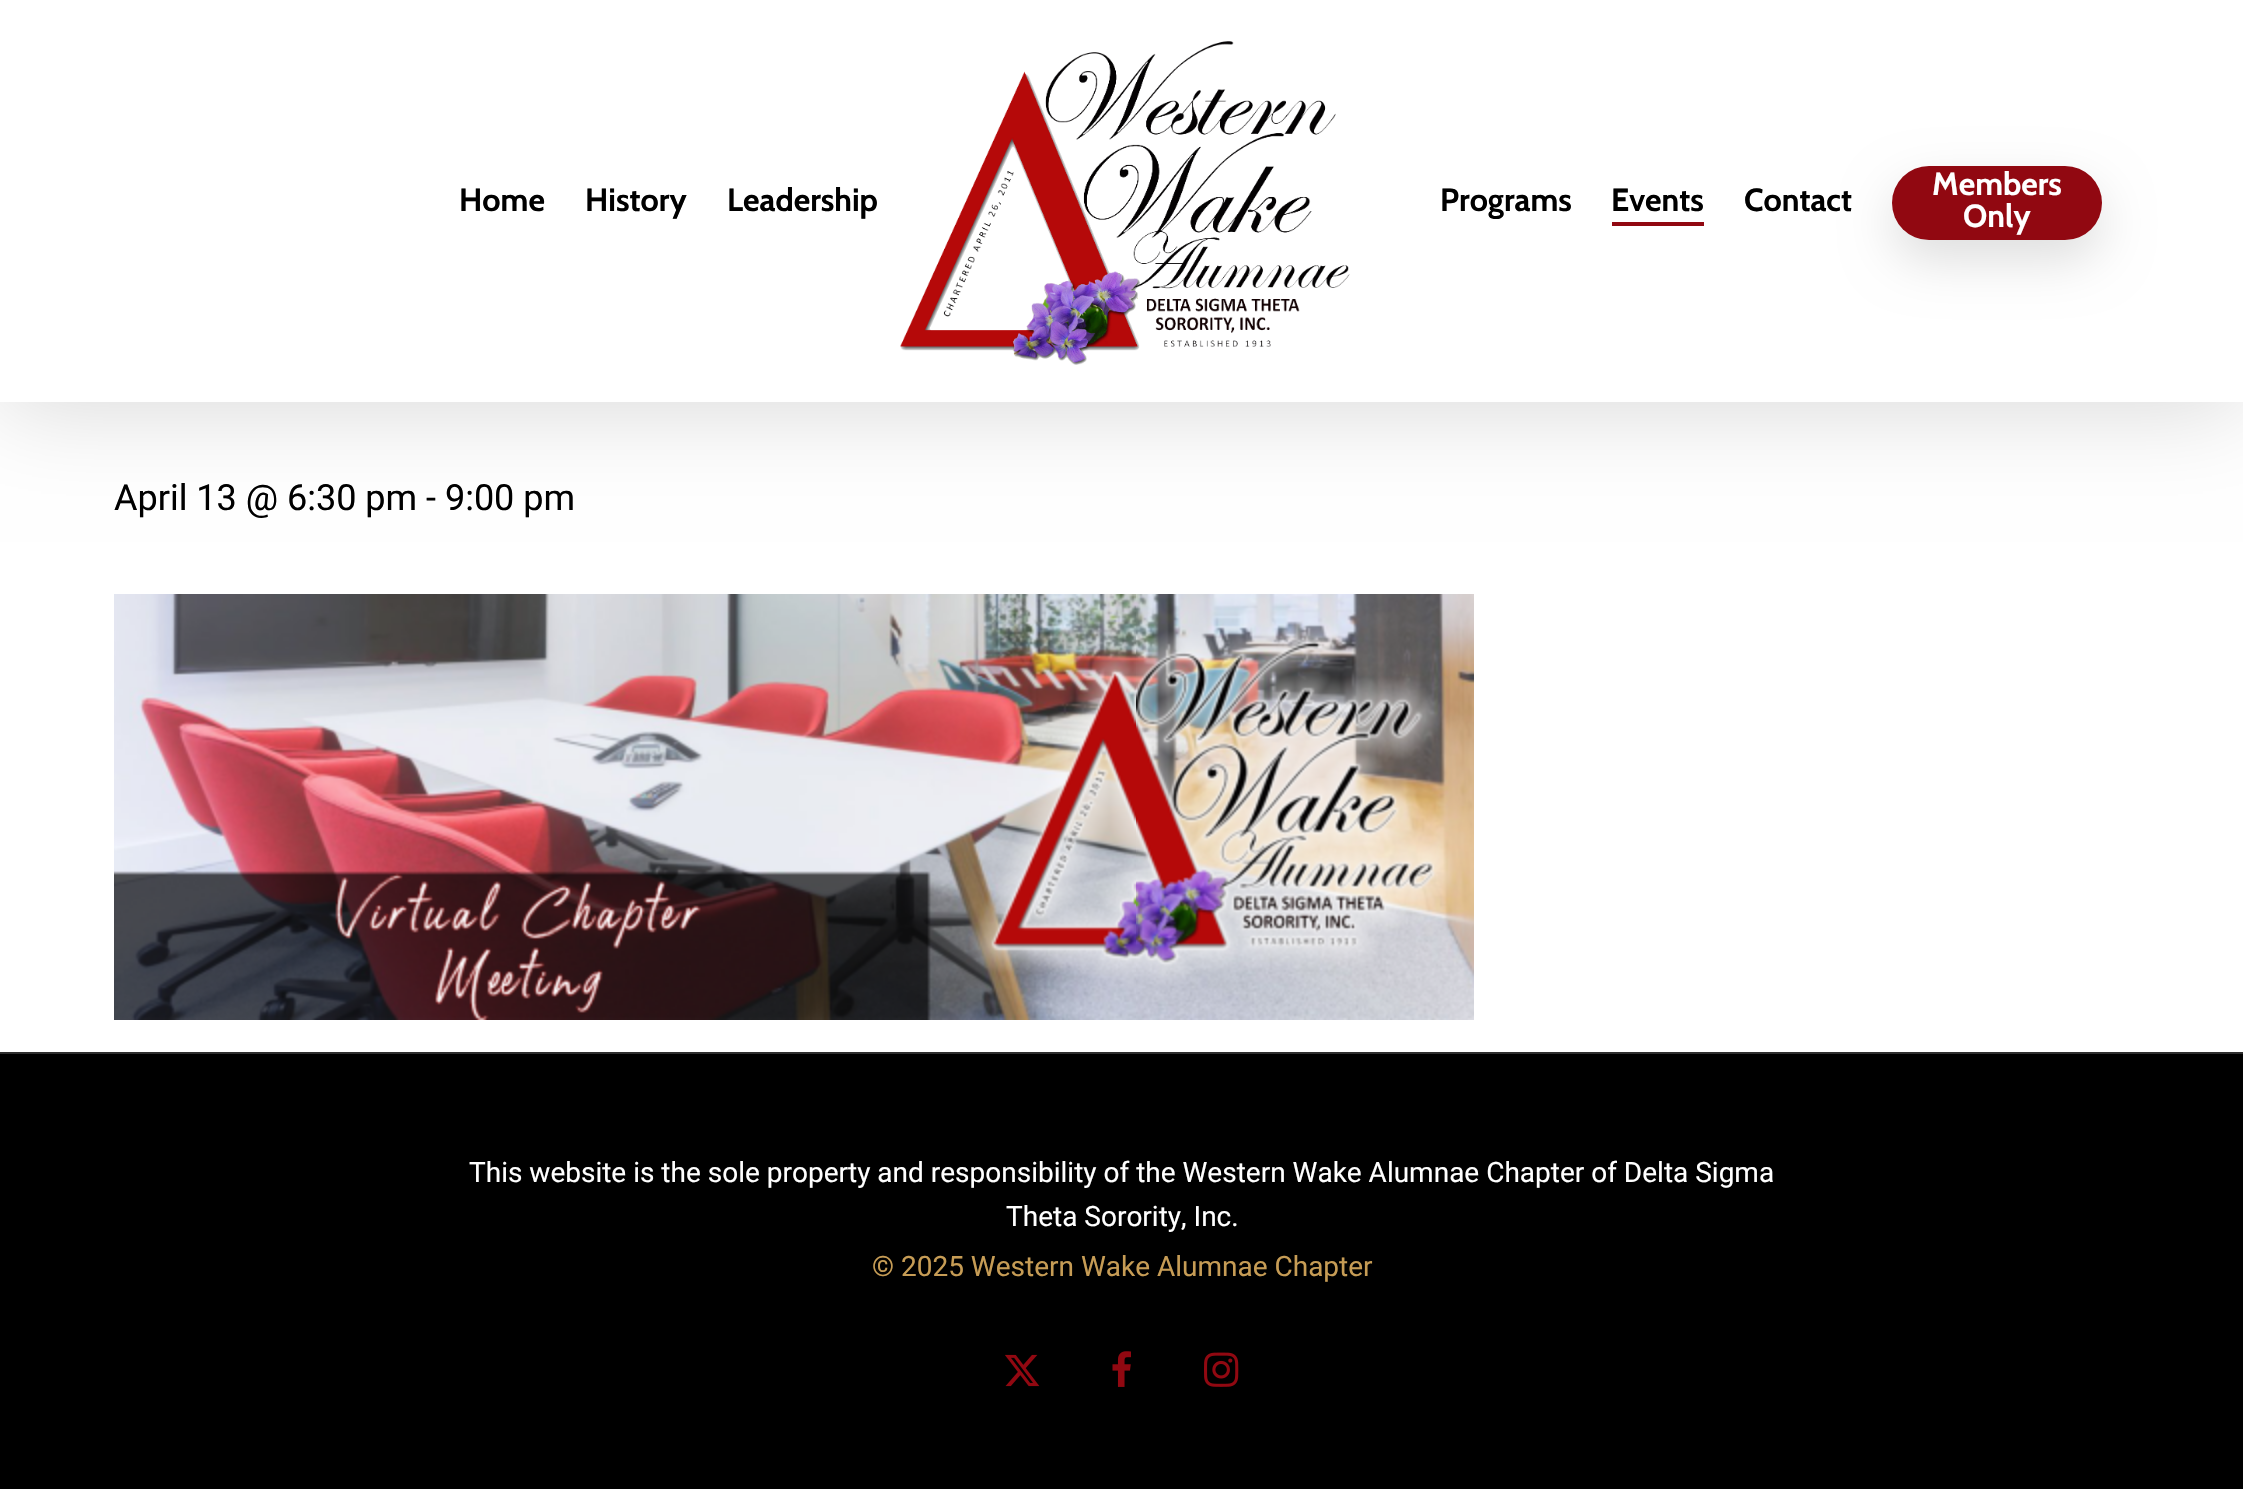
#include "include/core/SkBlurTypes.h"
#include "include/core/SkCanvas.h"
#include "include/core/SkData.h"
#include "include/core/SkFont.h"
#include "include/core/SkFontMgr.h"
#include "include/core/SkImage.h"
#include "include/core/SkMaskFilter.h"
#include "include/core/SkPaint.h"
#include "include/core/SkPathBuilder.h"
#include "include/core/SkTextBlob.h"
#include "include/effects/SkDashPathEffect.h"
#include "include/effects/SkGradientShader.h"
#include "include/utils/SkParsePath.h"

extern sk_sp<SkFontMgr> fontMgr;

void draw(SkCanvas* canvas) {
    SkPaint p;
    p.setAntiAlias(true);
    auto font = [&](const char* family, int weight, float size, bool italic = false) {
        SkFontStyle style(weight, SkFontStyle::kNormal_Width,
            italic ? SkFontStyle::kItalic_Slant : SkFontStyle::kUpright_Slant);
        SkFont result(fontMgr->matchFamilyStyle(family, style), size);
        result.setSubpixel(true);
        return result;
    };
    auto drawPhoto = [&](const char* path, float l, float t, float r, float b) {
        auto image = SkImages::DeferredFromEncodedData(SkData::MakeFromFileName(path));
        canvas->drawImageRect(image, SkRect::MakeLTRB(l, t, r, b), SkSamplingOptions());
    };
    canvas->clear(0xFFFFFFFF);
    p.setColor(0x26000000);
    p.setMaskFilter(SkMaskFilter::MakeBlur(kNormal_SkBlurStyle, 45));
    canvas->drawRect(SkRect::MakeLTRB(0, 6, 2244, 408), p);
    p.setMaskFilter(nullptr);
    p.setColor(0xFFFFFFFF);
    canvas->drawRect(SkRect::MakeLTRB(0, 0, 2243, 402), p);
    drawPhoto("media/1.png", 900, 41, 1350, 365);
    auto font1 = font("Cabin", 700, 32);
    p.setColor(0xFF000000);
    {
        const struct { const char* s; float x, y; } items[] = {
            {"Home", 459, 211},
            {"History", 585, 211},
            {"Leadership", 727, 211},
            {"Programs", 1440, 211},
            {"Events", 1611, 211},
        };
        for (auto [s, x, y] : items) {
            canvas->drawString(s, x, y, font1, p);
        }
    }
    p.setColor(0xFF910811);
    canvas->drawRect(SkRect::MakeLTRB(1612, 222, 1704, 226), p);
    p.setColor(0xFF000000);
    canvas->drawString("Contact", 1744, 211, font1, p);
    p.setColor(0x21000000);
    p.setMaskFilter(SkMaskFilter::MakeBlur(kNormal_SkBlurStyle, 25));
    canvas->drawRoundRect(SkRect::MakeLTRB(1892, 186, 2102, 260), 37, 37, p);
    p.setMaskFilter(nullptr);
    p.setColor(0xFF910811);
    canvas->drawRoundRect(SkRect::MakeLTRB(1892, 166, 2102, 240), 37, 37, p);
    p.setColor(0xFFFFFFFF);
    canvas->drawString("Members", 1932, 195, font1, p);
    canvas->drawString("Only", 1963, 227, font1, p);
    auto font2 = font("Roboto", 400, 36);
    p.setColor(0xFF000000);
    canvas->drawString("April 13 @ 6:30 pm - 9:00 pm", 114, 510, font2, p);
    drawPhoto("media/2.png", 114, 594, 1474, 1020);
    canvas->drawRect(SkRect::MakeLTRB(0, 1054, 2243, 1489), p);
    p.setColor(0xFF2E2E2E);
    canvas->drawRect(SkRect::MakeLTRB(0, 1052, 2243, 1054), p);
    auto font3 = font("Roboto", 400, 28);
    p.setColor(0xFFFFFFFF);
    canvas->drawString("This website is the sole property and responsibility of the Western Wake Alumnae Chapter of Delta Sigma", 469, 1182, font3, p);
    canvas->drawString("Theta Sorority, Inc.", 1006, 1226, font3, p);
    p.setColor(0xFFC69C55);
    canvas->drawString("© 2025 Western Wake Alumnae Chapter", 872, 1276, font3, p);
    drawPhoto("media/3.png", 1005, 1354, 1040, 1387);
    drawPhoto("media/4.png", 1112, 1351, 1131, 1387);
    drawPhoto("media/5.png", 1204, 1352, 1239, 1387);
}
